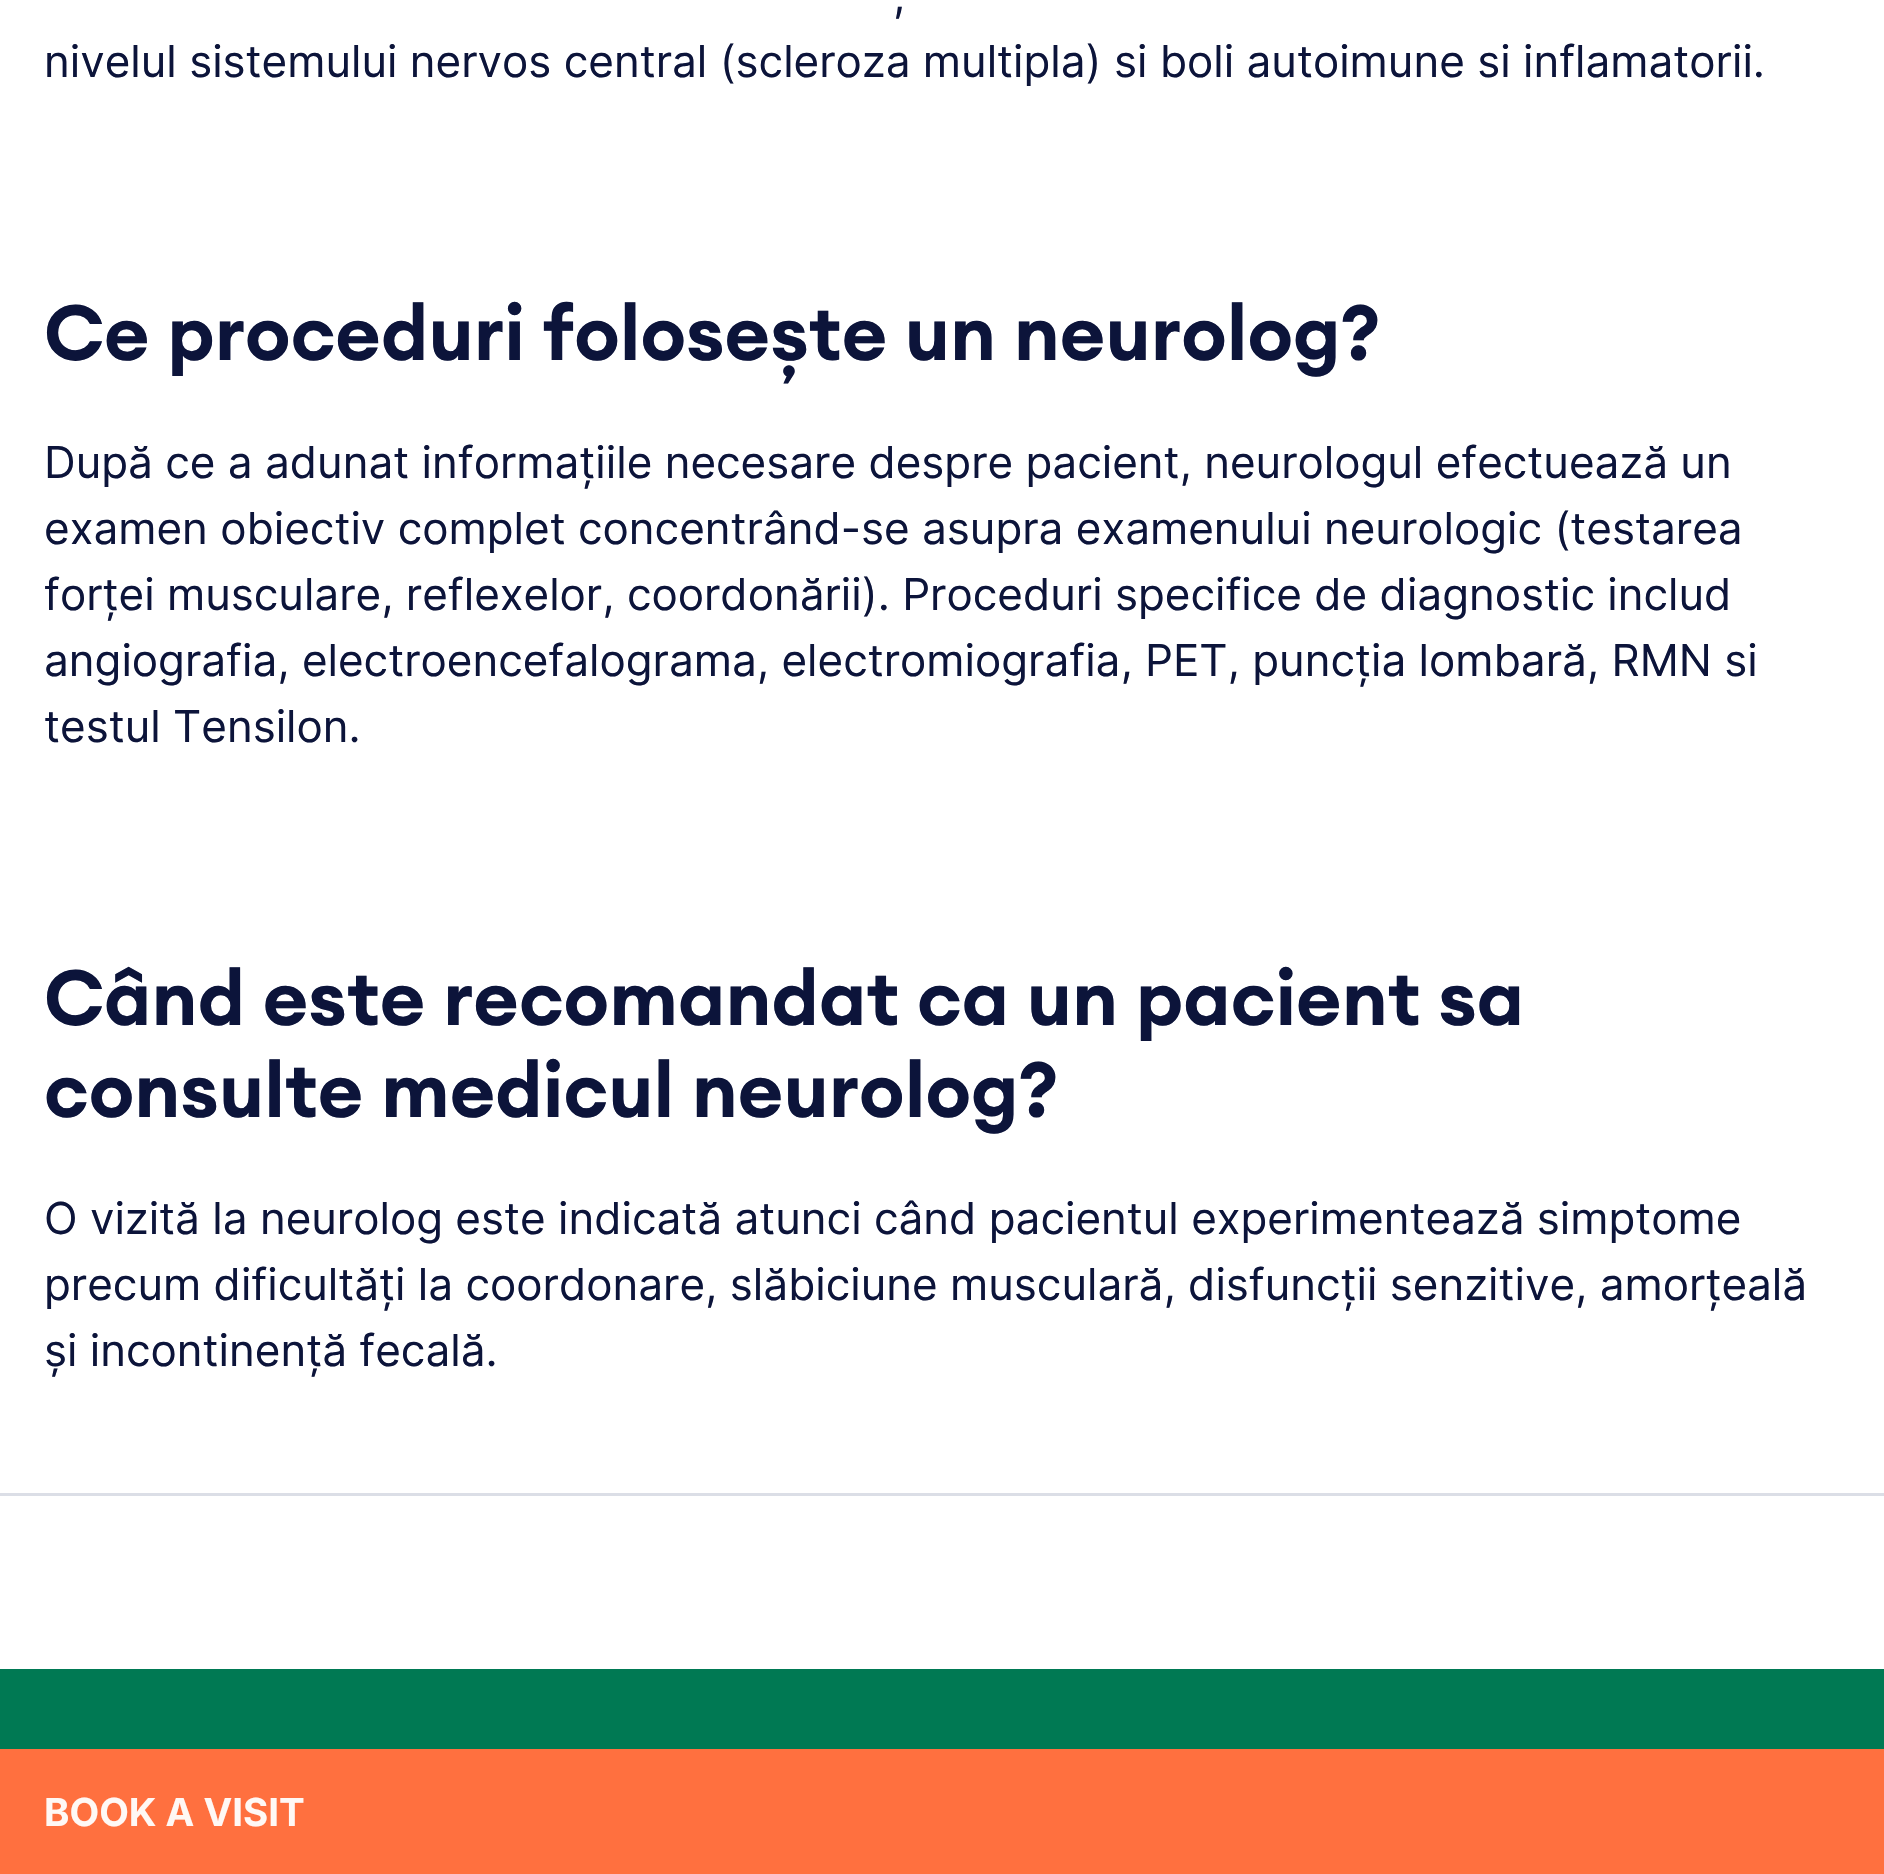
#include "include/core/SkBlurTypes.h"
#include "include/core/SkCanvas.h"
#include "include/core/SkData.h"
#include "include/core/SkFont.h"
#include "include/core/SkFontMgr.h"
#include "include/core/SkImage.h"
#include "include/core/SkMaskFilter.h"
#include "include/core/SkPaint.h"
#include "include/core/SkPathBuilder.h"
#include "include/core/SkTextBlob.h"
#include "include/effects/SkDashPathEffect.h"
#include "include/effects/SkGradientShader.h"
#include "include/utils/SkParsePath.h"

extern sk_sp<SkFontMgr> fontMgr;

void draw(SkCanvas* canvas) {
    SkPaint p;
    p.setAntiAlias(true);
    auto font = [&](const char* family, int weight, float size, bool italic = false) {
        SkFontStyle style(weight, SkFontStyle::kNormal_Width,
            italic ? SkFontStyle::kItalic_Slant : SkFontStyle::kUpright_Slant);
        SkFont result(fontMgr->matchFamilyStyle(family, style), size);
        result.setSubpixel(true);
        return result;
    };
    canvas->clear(0xFFFFFFFF);
    auto font1 = font("Inter", 400, 44);
    p.setColor(0xFF0C143A);
    canvas->drawString(",", 893, 11, font1, p);
    canvas->drawString("nivelul sistemului nervos central (scleroza multipla) si boli autoimune si inflamatorii.", 44, 77, font1, p);
    auto font2 = font("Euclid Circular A", 600, 77);
    canvas->drawString("Ce proceduri folosește un neurolog?", 44, 360, font2, p);
    {
        const struct { const char* s; float x, y; } items[] = {
            {"După ce a adunat informațiile necesare despre pacient, neurologul efectuează un", 44, 478},
            {"examen obiectiv complet concentrând-se asupra examenului neurologic (testarea", 44, 544},
            {"forței musculare, reflexelor, coordonării). Proceduri specifice de diagnostic includ", 44, 610},
            {"angiografia, electroencefalograma, electromiografia, PET, puncția lombară, RMN si", 44, 676},
            {"testul Tensilon.", 44, 742},
        };
        for (auto [s, x, y] : items) {
            canvas->drawString(s, x, y, font1, p);
        }
    }
    canvas->drawString("Când este recomandat ca un pacient sa", 44, 1025, font2, p);
    canvas->drawString("consulte medicul neurolog?", 44, 1117, font2, p);
    {
        const struct { const char* s; float x, y; } items[] = {
            {"O vizită la neurolog este indicată atunci când pacientul experimentează simptome", 44, 1234},
            {"precum dificultăți la coordonare, slăbiciune musculară, disfuncții senzitive, amorțeală", 44, 1300},
            {"și incontinență fecală.", 44, 1366},
        };
        for (auto [s, x, y] : items) {
            canvas->drawString(s, x, y, font1, p);
        }
    }
    {
        const struct { float l, t, r, b; SkColor color; } items[] = {
            {0, 1493, 1884, 1496, 0xFFDBDEE6},
            {0, 1669, 1884, 1749, 0xFF007953},
            {0, 1749, 1884, 1874, 0xFFFF703F},
        };
        for (auto [l, t, r, b, color] : items) {
            p.setColor(color);
            canvas->drawRect(SkRect::MakeLTRB(l, t, r, b), p);
        }
    }
    auto font3 = font("Inter", 700, 38.5f);
    p.setColor(0xFFFFF8F5);
    canvas->drawString("BOOK A VISIT", 44, 1826, font3, p);
}
